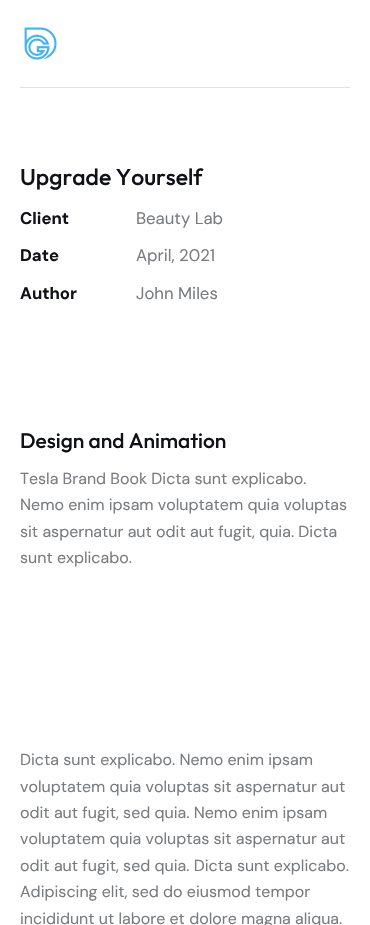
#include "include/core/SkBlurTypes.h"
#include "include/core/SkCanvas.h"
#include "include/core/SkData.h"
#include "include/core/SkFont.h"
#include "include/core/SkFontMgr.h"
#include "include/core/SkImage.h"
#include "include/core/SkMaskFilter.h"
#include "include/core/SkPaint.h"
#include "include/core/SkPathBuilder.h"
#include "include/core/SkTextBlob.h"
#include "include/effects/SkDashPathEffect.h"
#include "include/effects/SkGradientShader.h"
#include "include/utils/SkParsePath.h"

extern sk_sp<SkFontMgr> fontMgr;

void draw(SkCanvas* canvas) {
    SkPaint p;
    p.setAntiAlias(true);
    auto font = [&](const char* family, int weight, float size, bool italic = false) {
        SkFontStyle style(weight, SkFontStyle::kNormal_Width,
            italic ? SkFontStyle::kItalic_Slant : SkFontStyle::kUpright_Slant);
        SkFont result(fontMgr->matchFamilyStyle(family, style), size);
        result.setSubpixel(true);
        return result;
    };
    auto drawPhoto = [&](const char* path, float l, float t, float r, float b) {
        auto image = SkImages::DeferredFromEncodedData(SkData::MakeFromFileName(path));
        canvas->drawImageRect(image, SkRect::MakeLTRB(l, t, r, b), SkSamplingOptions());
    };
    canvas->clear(0xFFFFFFFF);
    drawPhoto("media/1.png", 24, 27, 57, 60);
    p.setColor(0xFFE1E1DD);
    canvas->drawRect(SkRect::MakeLTRB(20, 87, 350, 88), p);
    auto font1 = font("Outfit", 500, 23);
    p.setColor(0xFF101218);
    canvas->drawString("Upgrade Yourself", 20, 185, font1, p);
    auto font2 = font("DM Sans", 700, 16.75f);
    canvas->drawString("Client", 20, 224, font2, p);
    auto font3 = font("DM Sans", 400, 16.75f);
    p.setColor(0xFF797C7F);
    canvas->drawString("Beauty Lab", 136, 224, font3, p);
    p.setColor(0xFF101218);
    canvas->drawString("Date", 20, 261, font2, p);
    p.setColor(0xFF797C7F);
    canvas->drawString("April, 2021", 136, 261, font3, p);
    p.setColor(0xFF101218);
    canvas->drawString("Author", 20, 299, font2, p);
    p.setColor(0xFF797C7F);
    canvas->drawString("John Miles", 136, 299, font3, p);
    auto font4 = font("Outfit", 500, 21);
    p.setColor(0xFF101218);
    canvas->drawString("Design and Animation", 20, 448, font4, p);
    auto font5 = font("DM Sans", 400, 16);
    p.setColor(0xFF797C7F);
    {
        const struct { const char* s; float x, y; } items[] = {
            {"Tesla Brand Book Dicta sunt explicabo.", 20, 484},
            {"Nemo enim ipsam voluptatem quia voluptas", 20, 510},
            {"sit aspernatur aut odit aut fugit, quia. Dicta", 20, 537},
            {"sunt explicabo.", 20, 563},
            {"Dicta sunt explicabo. Nemo enim ipsam", 20, 765},
            {"voluptatem quia voluptas sit aspernatur aut", 20, 792},
            {"odit aut fugit, sed quia. Nemo enim ipsam", 20, 818},
            {"voluptatem quia voluptas sit aspernatur aut", 20, 844},
            {"odit aut fugit, sed quia. Dicta sunt explicabo.", 20, 871},
            {"Adipiscing elit, sed do eiusmod tempor", 20, 897},
            {"incididunt ut labore et dolore magna aliqua.", 20, 924},
        };
        for (auto [s, x, y] : items) {
            canvas->drawString(s, x, y, font5, p);
        }
    }
}
